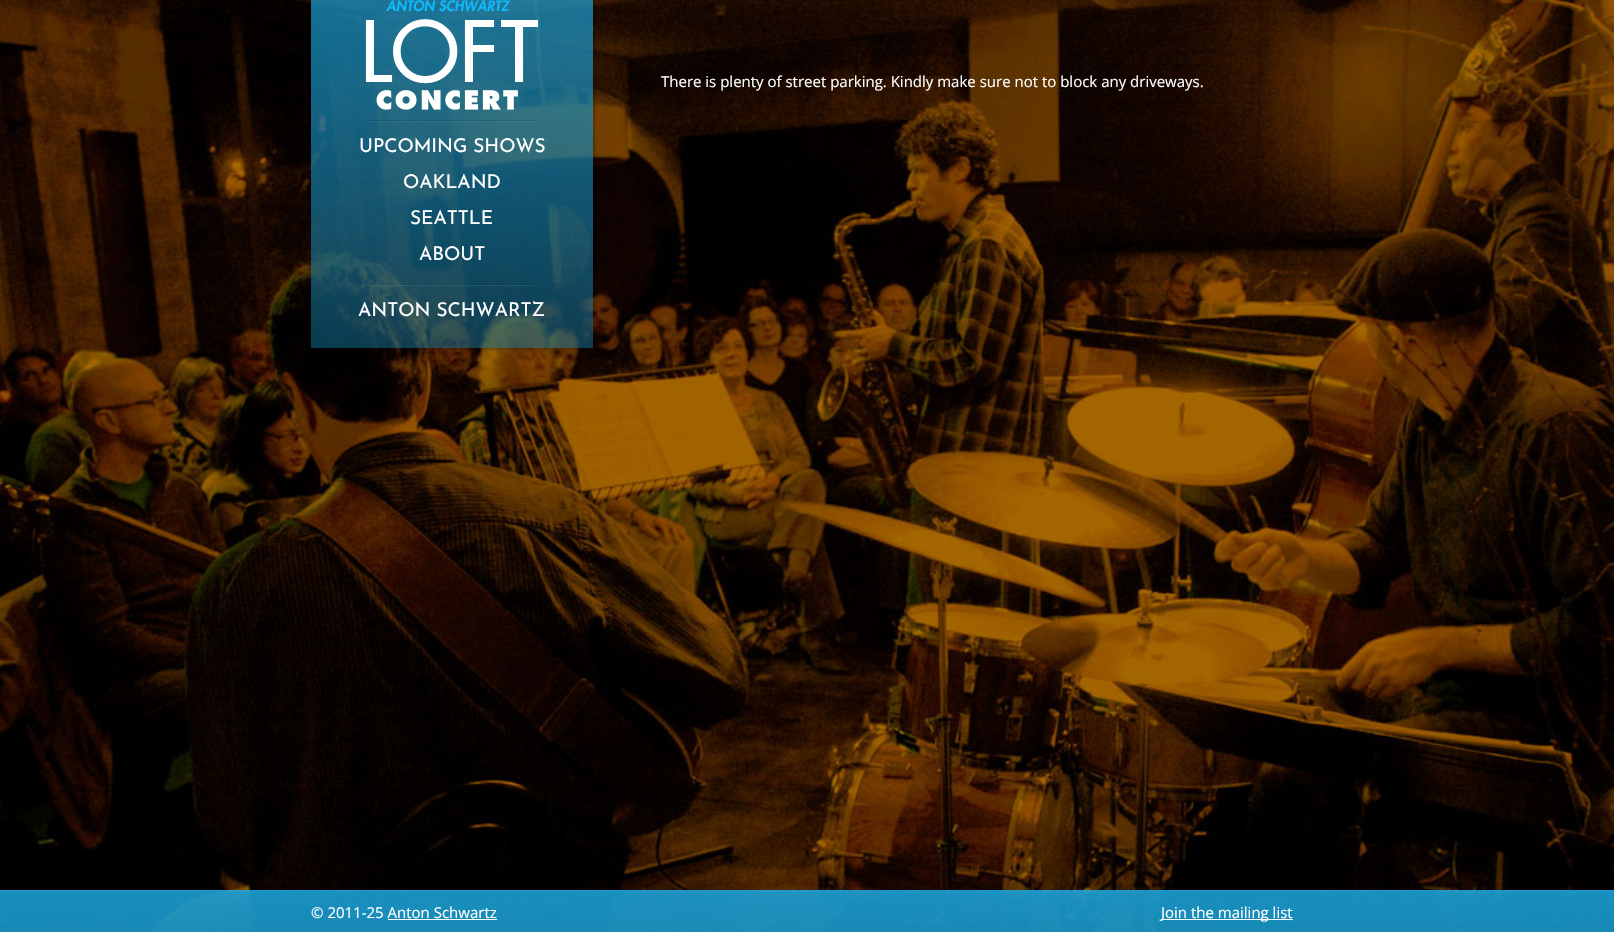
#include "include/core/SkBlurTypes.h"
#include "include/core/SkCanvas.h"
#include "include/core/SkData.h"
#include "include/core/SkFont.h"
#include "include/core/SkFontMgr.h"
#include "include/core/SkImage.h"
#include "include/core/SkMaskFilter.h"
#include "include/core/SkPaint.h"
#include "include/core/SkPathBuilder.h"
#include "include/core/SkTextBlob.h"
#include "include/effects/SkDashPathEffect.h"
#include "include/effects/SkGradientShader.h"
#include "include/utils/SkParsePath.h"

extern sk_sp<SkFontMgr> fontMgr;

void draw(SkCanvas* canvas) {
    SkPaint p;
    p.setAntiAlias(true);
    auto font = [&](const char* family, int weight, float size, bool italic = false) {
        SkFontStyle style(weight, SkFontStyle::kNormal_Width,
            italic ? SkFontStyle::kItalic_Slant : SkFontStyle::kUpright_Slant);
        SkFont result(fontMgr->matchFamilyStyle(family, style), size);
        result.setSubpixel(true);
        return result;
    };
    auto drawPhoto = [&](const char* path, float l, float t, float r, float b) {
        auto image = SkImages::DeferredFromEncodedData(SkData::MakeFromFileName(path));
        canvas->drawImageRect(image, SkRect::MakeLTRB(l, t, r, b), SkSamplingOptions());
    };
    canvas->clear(0xFFFFFFFF);
    drawPhoto("media/1.png", 0, 0, 1614, 932);
    auto font1 = font("Open Sans", 400, 15);
    p.setColor(0xFFFFFFFF);
    canvas->drawString("There is plenty of street parking. Kindly make sure not to block any driveways.", 661, 87, font1, p);
    canvas->save();
    canvas->clipPath(SkPathBuilder(SkPathFillType::kEvenOdd).moveTo(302, 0).lineTo(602, 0).lineTo(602, 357).lineTo(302, 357).close().moveTo(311, 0).lineTo(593, 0).lineTo(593, 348).lineTo(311, 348).close().detach(), true);
    p.setColor(0x80000000);
    p.setMaskFilter(SkMaskFilter::MakeBlur(kNormal_SkBlurStyle, 2.5f));
    canvas->drawRect(SkRect::MakeLTRB(311, 0, 593, 348), p);
    p.setMaskFilter(nullptr);
    canvas->restore();
    drawPhoto("media/2.png", 311, 0, 593, 348);
    drawPhoto("media/3.png", 365, 0, 539, 110);
    drawPhoto("media/4.png", 370, 120, 534, 122);
    auto font2 = font("Josefin Sans", 400, 19);
    p.setColor(0xFFFFFFFF);
    {
        const struct { const char* s; float x, y; } items[] = {
            {"UPCOMING SHOWS", 359, 152},
            {"OAKLAND", 403, 188},
            {"SEATTLE", 410, 224},
            {"ABOUT", 419, 260},
        };
        for (auto [s, x, y] : items) {
            canvas->drawString(s, x, y, font2, p);
        }
    }
    drawPhoto("media/5.png", 370, 284, 534, 286);
    canvas->drawString("ANTON SCHWARTZ", 358, 316, font2, p);
    drawPhoto("media/6.png", 0, 890, 1614, 932);
    drawPhoto("media/7.png", 0, 890, 1614, 932);
    canvas->drawString("© 2011-25 Anton Schwartz", 311, 918, font1, p);
    canvas->drawRect(SkRect::MakeLTRB(388, 919, 497, 920), p);
    canvas->drawRect(SkRect::MakeLTRB(1161, 919, 1293, 920), p);
    canvas->drawString("Join the mailing list", 1161, 918, font1, p);
}
